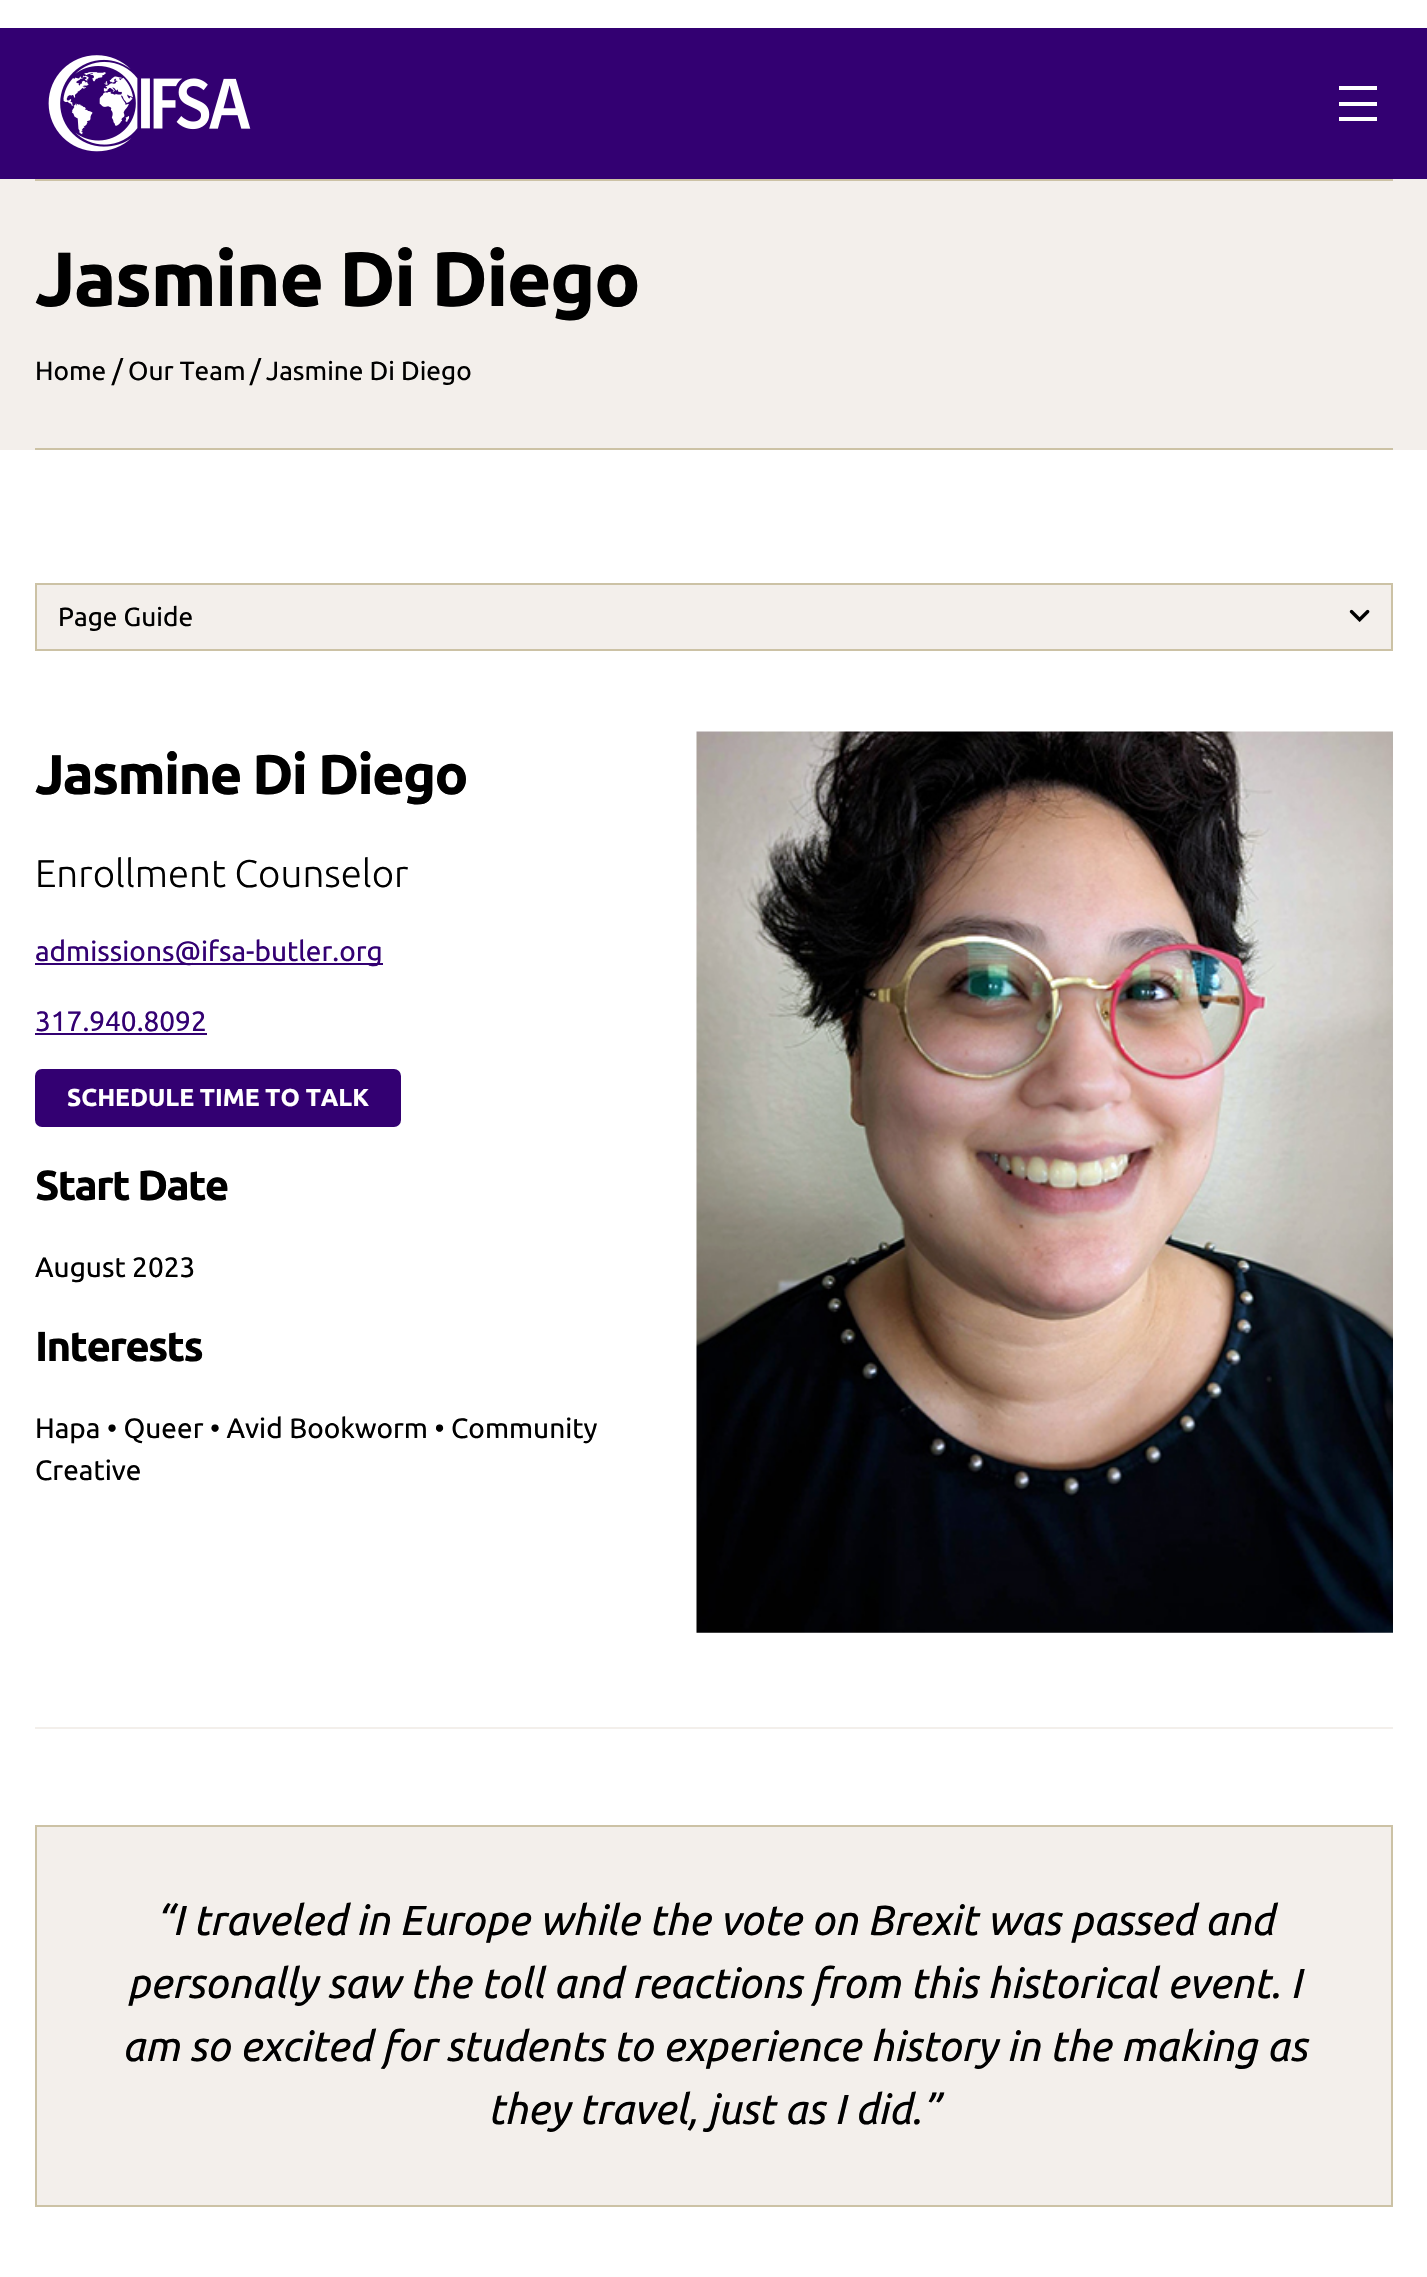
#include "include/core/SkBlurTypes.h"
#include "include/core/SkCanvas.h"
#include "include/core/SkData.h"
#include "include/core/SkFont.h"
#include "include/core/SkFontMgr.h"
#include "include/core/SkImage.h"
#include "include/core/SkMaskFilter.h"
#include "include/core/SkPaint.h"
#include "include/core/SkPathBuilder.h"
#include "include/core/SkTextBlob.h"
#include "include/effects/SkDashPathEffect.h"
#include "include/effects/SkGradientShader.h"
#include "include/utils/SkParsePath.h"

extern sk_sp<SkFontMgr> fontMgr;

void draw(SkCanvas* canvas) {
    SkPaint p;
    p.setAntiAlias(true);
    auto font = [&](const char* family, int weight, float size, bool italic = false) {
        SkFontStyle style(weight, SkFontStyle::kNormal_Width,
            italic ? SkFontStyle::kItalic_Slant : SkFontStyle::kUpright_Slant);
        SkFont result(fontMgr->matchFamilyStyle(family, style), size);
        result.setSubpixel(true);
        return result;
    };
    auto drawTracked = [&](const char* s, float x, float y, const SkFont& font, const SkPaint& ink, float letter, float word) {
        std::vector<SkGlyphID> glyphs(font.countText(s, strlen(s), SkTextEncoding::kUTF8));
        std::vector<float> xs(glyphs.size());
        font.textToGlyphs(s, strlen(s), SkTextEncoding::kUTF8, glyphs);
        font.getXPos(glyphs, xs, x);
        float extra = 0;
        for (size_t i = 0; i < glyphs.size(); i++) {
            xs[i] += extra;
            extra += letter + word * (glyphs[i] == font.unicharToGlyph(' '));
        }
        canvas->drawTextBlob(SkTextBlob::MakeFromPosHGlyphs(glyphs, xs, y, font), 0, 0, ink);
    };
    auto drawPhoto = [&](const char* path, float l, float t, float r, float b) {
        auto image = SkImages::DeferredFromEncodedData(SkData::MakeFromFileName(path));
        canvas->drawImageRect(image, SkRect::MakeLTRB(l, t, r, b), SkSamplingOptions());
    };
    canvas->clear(0xFFFFFFFF);
    p.setColor(0xFF330072);
    canvas->drawRect(SkRect::MakeLTRB(0, 28, 1427, 179), p);
    drawPhoto("media/1.png", 48, 55, 251, 152);
    {
        const struct { float l, t, r, b; SkColor color; } items[] = {
            {1339, 86, 1377, 90, 0xFFFFFFFF},
            {1339, 102, 1377, 106, 0xFFFFFFFF},
            {1339, 117, 1377, 121, 0xFFFFFFFF},
            {0, 179, 1427, 450, 0xFFF3EFEB},
            {35, 179, 1393, 181, 0xFFCCC2A5},
            {35, 448, 1393, 450, 0xFFCCC2A5},
        };
        for (auto [l, t, r, b, color] : items) {
            p.setColor(color);
            canvas->drawRect(SkRect::MakeLTRB(l, t, r, b), p);
        }
    }
    auto font1 = font("Ubuntu", 700, 77);
    p.setColor(0xFF000000);
    drawTracked("Jasmine Di Diego", 35, 306, font1, p, -1.75f, 0);
    auto font2 = font("Ubuntu", 400, 26.25f);
    canvas->drawString("Home", 35, 380, font2, p);
    auto font3 = font("Ubuntu", 400, 28);
    canvas->drawString("/", 112, 380, font3, p);
    canvas->drawString("Our Team", 128, 380, font2, p);
    canvas->drawString("/", 250, 380, font3, p);
    canvas->drawString("Jasmine Di Diego", 266, 380, font2, p);
    p.setColor(0xFFF3EFEB);
    canvas->drawRect(SkRect::MakeLTRB(36, 584, 1392, 650), p);
    p.setStyle(SkPaint::kStroke_Style);
    p.setStrokeWidth(2);
    p.setColor(0xFFCCC2A5);
    canvas->drawRect(SkRect::MakeLTRB(36, 584, 1392, 650), p);
    p.setStyle(SkPaint::kFill_Style);
    p.setColor(0xFF000000);
    canvas->drawString("Page Guide", 58, 626, font2, p);
    drawPhoto("media/2.png", 1349, 609, 1370, 622);
    auto font4 = font("Ubuntu", 700, 56);
    drawTracked("Jasmine Di Diego", 35, 794, font4, p, -1.75f, 0);
    auto font5 = font("Ubuntu", 300, 38.5f);
    canvas->drawString("Enrollment Counselor", 35, 887, font5, p);
    p.setColor(0xFF330072);
    canvas->drawRect(SkRect::MakeLTRB(35, 963, 383, 965), p);
    canvas->drawString("admissions@ifsa-butler.org", 35, 961, font3, p);
    canvas->drawString("317.940.8092", 35, 1031, font3, p);
    canvas->drawRect(SkRect::MakeLTRB(35, 1033, 207, 1035), p);
    canvas->drawRoundRect(SkRect::MakeLTRB(37, 1071, 399, 1125), 5, 5, p);
    p.setStyle(SkPaint::kStroke_Style);
    p.setStrokeWidth(4);
    canvas->drawRoundRect(SkRect::MakeLTRB(37, 1071, 399, 1125), 5, 5, p);
    auto font6 = font("Ubuntu", 700, 24.5f);
    p.setStyle(SkPaint::kFill_Style);
    p.setColor(0xFFFFFFFF);
    canvas->drawString("SCHEDULE TIME TO TALK", 67, 1106, font6, p);
    auto font7 = font("Ubuntu", 700, 42);
    p.setColor(0xFF000000);
    drawTracked("Start Date", 35, 1200, font7, p, -1.75f, 0);
    canvas->drawString("August 2023", 35, 1277, font3, p);
    drawTracked("Interests", 35, 1361, font7, p, -1.75f, 0);
    canvas->drawString("Hapa • Queer • Avid Bookworm • Community", 35, 1438, font3, p);
    canvas->drawString("Creative", 35, 1480, font3, p);
    drawPhoto("media/3.png", 696, 731, 1393, 1633);
    p.setColor(0xFFF3EFEB);
    canvas->drawRect(SkRect::MakeLTRB(35, 1727, 1393, 1729), p);
    canvas->drawRect(SkRect::MakeLTRB(36, 1826, 1392, 2206), p);
    p.setStyle(SkPaint::kStroke_Style);
    p.setStrokeWidth(2);
    p.setColor(0xFFCCC2A5);
    canvas->drawRect(SkRect::MakeLTRB(36, 1826, 1392, 2206), p);
    auto font8 = font("Ubuntu", 400, 42, true);
    p.setStyle(SkPaint::kFill_Style);
    p.setColor(0xFF000000);
    {
        const struct { const char* s; float x, y; } items[] = {
            {"“I traveled in Europe while the vote on Brexit was passed and", 155, 1935},
            {"personally saw the toll and reactions from this historical event. I", 127, 1998},
            {"am so excited for students to experience history in the making as", 122, 2061},
            {"they travel, just as I did.”", 488, 2124},
        };
        for (auto [s, x, y] : items) {
            canvas->drawString(s, x, y, font8, p);
        }
    }
}
